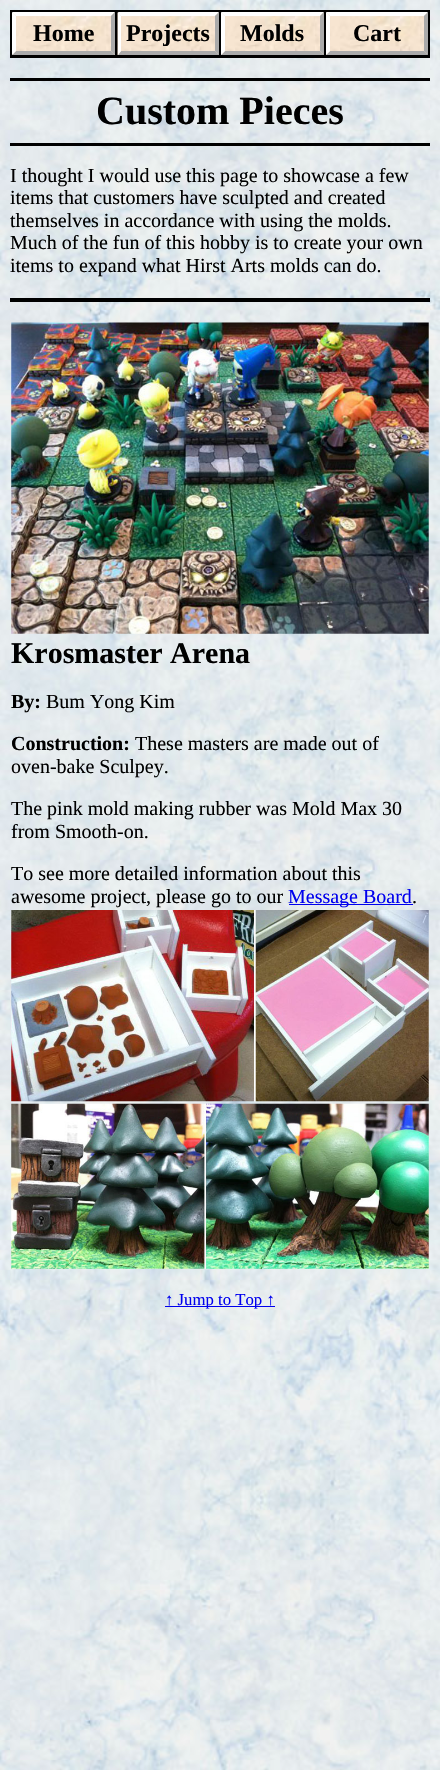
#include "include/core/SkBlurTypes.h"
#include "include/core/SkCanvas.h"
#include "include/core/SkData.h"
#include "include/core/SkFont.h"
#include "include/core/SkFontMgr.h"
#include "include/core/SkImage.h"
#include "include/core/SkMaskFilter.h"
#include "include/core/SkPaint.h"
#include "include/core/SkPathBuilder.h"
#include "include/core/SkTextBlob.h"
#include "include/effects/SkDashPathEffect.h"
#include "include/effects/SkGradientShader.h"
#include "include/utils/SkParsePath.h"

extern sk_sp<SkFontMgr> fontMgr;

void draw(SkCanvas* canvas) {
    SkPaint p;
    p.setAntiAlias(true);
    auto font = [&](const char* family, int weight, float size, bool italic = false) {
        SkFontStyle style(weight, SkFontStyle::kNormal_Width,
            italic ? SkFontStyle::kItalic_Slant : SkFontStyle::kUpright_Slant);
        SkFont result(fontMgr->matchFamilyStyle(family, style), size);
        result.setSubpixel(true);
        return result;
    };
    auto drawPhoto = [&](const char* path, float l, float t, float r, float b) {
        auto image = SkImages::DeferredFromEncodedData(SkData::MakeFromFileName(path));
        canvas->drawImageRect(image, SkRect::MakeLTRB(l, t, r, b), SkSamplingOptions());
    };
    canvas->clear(0xFFFFFFFF);
    drawPhoto("media/1.png", 0, 0, 440, 1770);
    p.setColor(0xFF000000);
    canvas->drawRect(SkRect::MakeLTRB(10, 10, 430, 58), p);
    drawPhoto("media/2.png", 12, 12, 115, 55);
    p.setColor(0xFFFFFFFF);
    canvas->drawPath(SkPathBuilder().moveTo(12, 12).lineTo(115, 12).lineTo(111, 16).lineTo(16, 16).close().detach(), p);
    p.setColor(0xFFAAAAAA);
    canvas->drawPath(SkPathBuilder().moveTo(115, 12).lineTo(115, 55).lineTo(111, 51).lineTo(111, 16).close().detach(), p);
    canvas->drawPath(SkPathBuilder().moveTo(115, 55).lineTo(12, 55).lineTo(16, 51).lineTo(111, 51).close().detach(), p);
    p.setColor(0xFFFFFFFF);
    canvas->drawPath(SkPathBuilder().moveTo(12, 55).lineTo(12, 12).lineTo(16, 16).lineTo(16, 51).close().detach(), p);
    auto font1 = font("Liberation Serif", 700, 24);
    p.setColor(0xFF000000);
    canvas->drawString("Home", 33, 41, font1, p);
    drawPhoto("media/3.png", 117, 12, 219, 55);
    p.setColor(0xFFFFFFFF);
    canvas->drawPath(SkPathBuilder().moveTo(118, 12).lineTo(219, 12).lineTo(215, 16).lineTo(121, 16).close().detach(), p);
    p.setColor(0xFFAAAAAA);
    canvas->drawPath(SkPathBuilder().moveTo(219, 12).lineTo(219, 55).lineTo(215, 51).lineTo(215, 16).close().detach(), p);
    canvas->drawPath(SkPathBuilder().moveTo(219, 55).lineTo(118, 55).lineTo(121, 51).lineTo(215, 51).close().detach(), p);
    p.setColor(0xFFFFFFFF);
    canvas->drawPath(SkPathBuilder().moveTo(118, 55).lineTo(118, 12).lineTo(121, 16).lineTo(121, 51).close().detach(), p);
    p.setColor(0xFF000000);
    canvas->drawString("Projects", 126, 41, font1, p);
    drawPhoto("media/4.png", 221, 12, 324, 55);
    p.setColor(0xFFFFFFFF);
    canvas->drawPath(SkPathBuilder().moveTo(221, 12).lineTo(324, 12).lineTo(320, 16).lineTo(225, 16).close().detach(), p);
    p.setColor(0xFFAAAAAA);
    canvas->drawPath(SkPathBuilder().moveTo(324, 12).lineTo(324, 55).lineTo(320, 51).lineTo(320, 16).close().detach(), p);
    canvas->drawPath(SkPathBuilder().moveTo(324, 55).lineTo(221, 55).lineTo(225, 51).lineTo(320, 51).close().detach(), p);
    p.setColor(0xFFFFFFFF);
    canvas->drawPath(SkPathBuilder().moveTo(221, 55).lineTo(221, 12).lineTo(225, 16).lineTo(225, 51).close().detach(), p);
    p.setColor(0xFF000000);
    canvas->drawString("Molds", 240, 41, font1, p);
    drawPhoto("media/5.png", 326, 12, 428, 55);
    p.setColor(0xFFFFFFFF);
    canvas->drawPath(SkPathBuilder().moveTo(326, 12).lineTo(428, 12).lineTo(424, 16).lineTo(330, 16).close().detach(), p);
    p.setColor(0xFFAAAAAA);
    canvas->drawPath(SkPathBuilder().moveTo(428, 12).lineTo(428, 55).lineTo(424, 51).lineTo(424, 16).close().detach(), p);
    canvas->drawPath(SkPathBuilder().moveTo(428, 55).lineTo(326, 55).lineTo(330, 51).lineTo(424, 51).close().detach(), p);
    p.setColor(0xFFFFFFFF);
    canvas->drawPath(SkPathBuilder().moveTo(326, 55).lineTo(326, 12).lineTo(330, 16).lineTo(330, 51).close().detach(), p);
    p.setColor(0xFF000000);
    canvas->drawString("Cart", 353, 41, font1, p);
    canvas->drawRect(SkRect::MakeLTRB(10, 78, 430, 81), p);
    canvas->drawRect(SkRect::MakeLTRB(10, 143, 430, 146), p);
    auto font2 = font("Liberation Serif", 700, 40);
    canvas->drawString("Custom Pieces", 96, 124, font2, p);
    auto font3 = font("Liberation Serif", 400, 20);
    {
        const struct { const char* s; float x, y; } items[] = {
            {"I thought I would use this page to showcase a few", 10, 182},
            {"items that customers have sculpted and created", 10, 204},
            {"themselves in accordance with using the molds.", 10, 227},
            {"Much of the fun of this hobby is to create your own", 10, 249},
            {"items to expand what Hirst Arts molds can do.", 10, 272},
        };
        for (auto [s, x, y] : items) {
            canvas->drawString(s, x, y, font3, p);
        }
    }
    canvas->drawRect(SkRect::MakeLTRB(10, 298, 430, 302), p);
    drawPhoto("media/6.png", 11, 322, 429, 634);
    auto font4 = font("Liberation Serif", 700, 30);
    canvas->drawString("Krosmaster Arena", 11, 663, font4, p);
    auto font5 = font("Liberation Serif", 700, 20);
    canvas->drawString("By:", 11, 708, font5, p);
    canvas->drawString("Bum Yong Kim", 46, 708, font3, p);
    canvas->drawString("Construction:", 11, 750, font5, p);
    {
        const struct { const char* s; float x, y; } items[] = {
            {"These masters are made out of", 135, 750},
            {"oven-bake Sculpey.", 11, 773},
            {"The pink mold making rubber was Mold Max 30", 11, 815},
            {"from Smooth-on.", 11, 838},
            {"To see more detailed information about this", 11, 880},
            {"awesome project, please go to our", 11, 903},
        };
        for (auto [s, x, y] : items) {
            canvas->drawString(s, x, y, font3, p);
        }
    }
    p.setColor(0xFF0000EE);
    canvas->drawRect(SkRect::MakeLTRB(289, 904, 413, 905), p);
    canvas->drawString("Message Board", 288, 903, font3, p);
    p.setColor(0xFF000000);
    canvas->drawString(".", 412, 903, font3, p);
    drawPhoto("media/7.png", 11, 910, 429, 1102);
    drawPhoto("media/8.png", 11, 1103, 429, 1269);
    p.setColor(0xFF0000EE);
    canvas->drawRect(SkRect::MakeLTRB(165, 1306, 275, 1307), p);
    auto font6 = font("Liberation Serif", 400, 16.75f);
    canvas->drawString("↑ Jump to Top ↑", 165, 1305, font6, p);
}
